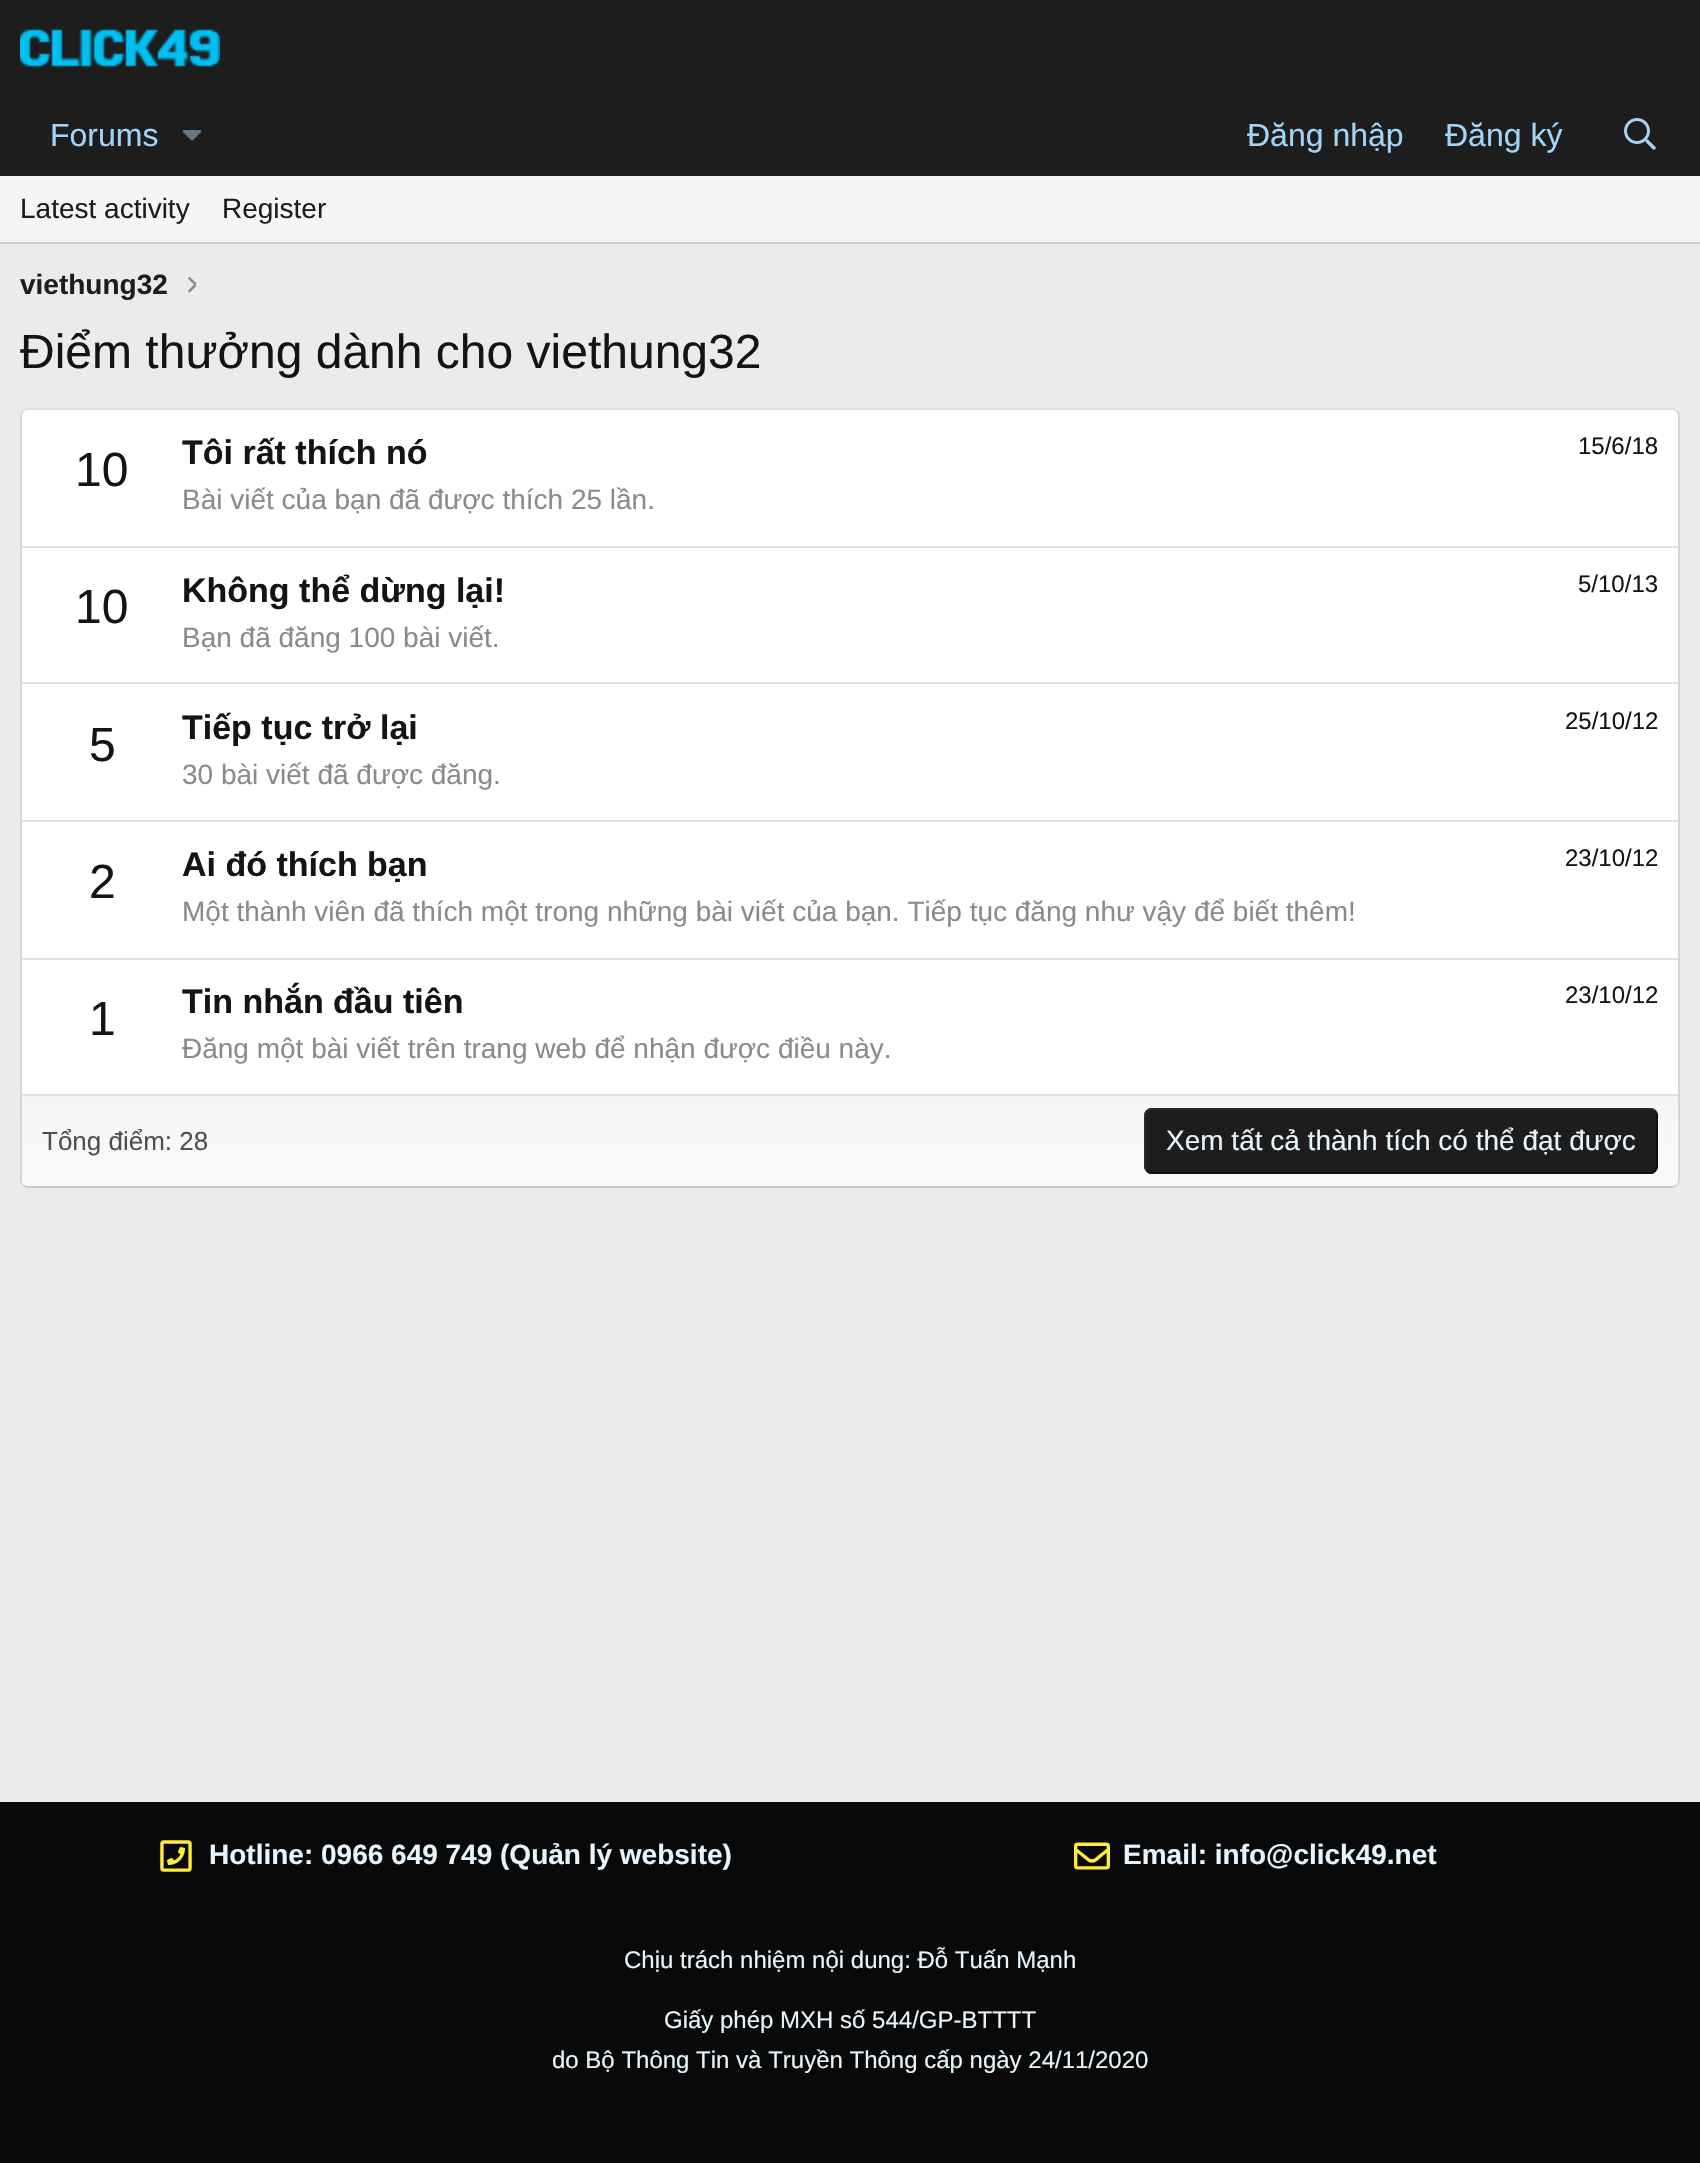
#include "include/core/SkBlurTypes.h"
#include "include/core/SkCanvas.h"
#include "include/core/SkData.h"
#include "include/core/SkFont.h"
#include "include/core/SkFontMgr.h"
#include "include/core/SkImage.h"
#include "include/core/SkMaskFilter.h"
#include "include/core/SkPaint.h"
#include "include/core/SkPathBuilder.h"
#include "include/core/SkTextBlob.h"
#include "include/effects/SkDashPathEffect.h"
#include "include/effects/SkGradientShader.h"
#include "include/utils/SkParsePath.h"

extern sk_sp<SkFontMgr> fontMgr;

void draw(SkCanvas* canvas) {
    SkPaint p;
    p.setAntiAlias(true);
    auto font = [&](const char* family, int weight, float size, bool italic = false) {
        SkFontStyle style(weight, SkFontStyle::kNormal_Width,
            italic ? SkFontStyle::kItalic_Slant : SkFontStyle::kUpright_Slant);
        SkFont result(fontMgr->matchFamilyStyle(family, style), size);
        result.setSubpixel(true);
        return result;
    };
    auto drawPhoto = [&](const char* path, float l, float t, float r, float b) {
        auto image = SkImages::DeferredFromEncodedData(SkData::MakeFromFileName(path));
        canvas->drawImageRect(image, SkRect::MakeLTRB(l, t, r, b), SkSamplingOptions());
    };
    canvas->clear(0xFFEBEBEB);
    p.setColor(0xFF1D1D1D);
    canvas->drawRect(SkRect::MakeLTRB(0, 0, 1700, 176), p);
    drawPhoto("media/1.png", 20, 29, 220, 67);
    auto font1 = font("Liberation Sans", 400, 32);
    p.setColor(0xFFA3D4F5);
    canvas->drawString("Forums", 50, 146, font1, p);
    drawPhoto("media/2.png", 182, 130, 202, 141);
    canvas->drawString("Đăng nhập", 1247, 146, font1, p);
    canvas->drawString("Đăng ký", 1445, 146, font1, p);
    drawPhoto("media/3.png", 1624, 118, 1656, 150);
    p.setColor(0xFFF5F5F5);
    canvas->drawRect(SkRect::MakeLTRB(0, 176, 1700, 242), p);
    p.setColor(0xFFCCCCCC);
    canvas->drawRect(SkRect::MakeLTRB(0, 242, 1700, 244), p);
    auto font2 = font("Liberation Sans", 400, 28);
    p.setColor(0xFF1D1D1D);
    canvas->drawString("Latest activity", 20, 218, font2, p);
    canvas->drawString("Register", 222, 218, font2, p);
    auto font3 = font("Liberation Sans", 700, 28);
    canvas->drawString("viethung32", 20, 294, font3, p);
    drawPhoto("media/4.png", 188, 276, 196, 293);
    auto font4 = font("Liberation Sans", 400, 48);
    p.setColor(0xFF141414);
    canvas->drawString("Điểm thưởng dành cho viethung32", 20, 368, font4, p);
    p.setColor(0xFFFFFFFF);
    canvas->drawRoundRect(SkRect::MakeLTRB(20, 408, 1680, 1188), 8, 8, p);
    p.setStyle(SkPaint::kStroke_Style);
    p.setStrokeWidth(2);
    p.setColor(0xFFE0E0E0);
    canvas->drawPath(SkPathBuilder().moveTo(23, 411).cubicTo(24.5f, 409.5f, 26, 409, 28, 409).lineTo(1672, 409).cubicTo(1674, 409, 1675.5f, 409.5f, 1677, 411).detach(), p);
    p.setColor(0xFFD6D6D6);
    canvas->drawPath(SkPathBuilder().moveTo(1677, 411).cubicTo(1678.5f, 412.5f, 1679, 414, 1679, 416).lineTo(1679, 1180).cubicTo(1679, 1182, 1678.5f, 1183.5f, 1677, 1185).detach(), p);
    p.setColor(0xFFCCCCCC);
    canvas->drawPath(SkPathBuilder().moveTo(1677, 1185).cubicTo(1675.5f, 1186.5f, 1674, 1187, 1672, 1187).lineTo(28, 1187).cubicTo(26, 1187, 24.5f, 1186.5f, 23, 1185).detach(), p);
    p.setColor(0xFFD6D6D6);
    canvas->drawPath(SkPathBuilder().moveTo(23, 1185).cubicTo(21.5f, 1183.5f, 21, 1182, 21, 1180).lineTo(21, 416).cubicTo(21, 414, 21.5f, 412.5f, 23, 411).detach(), p);
    p.setStyle(SkPaint::kFill_Style);
    p.setColor(0xFF141414);
    canvas->drawString("10", 75, 486, font4, p);
    auto font5 = font("Liberation Sans", 700, 34);
    canvas->drawString("Tôi rất thích nó", 182, 464, font5, p);
    auto font6 = font("Liberation Sans", 400, 24);
    canvas->drawString("15/6/18", 1578, 454, font6, p);
    p.setColor(0xFF8A8A8A);
    canvas->drawString("Bài viết của bạn đã được thích 25 lần.", 182, 509, font2, p);
    p.setColor(0xFFE0E0E0);
    canvas->drawRect(SkRect::MakeLTRB(22, 546, 1678, 548), p);
    p.setColor(0xFF141414);
    canvas->drawString("10", 75, 623, font4, p);
    canvas->drawString("Không thể dừng lại!", 182, 602, font5, p);
    canvas->drawString("5/10/13", 1578, 592, font6, p);
    p.setColor(0xFF8A8A8A);
    canvas->drawString("Bạn đã đăng 100 bài viết.", 182, 647, font2, p);
    p.setColor(0xFFE0E0E0);
    canvas->drawRect(SkRect::MakeLTRB(22, 682, 1678, 684), p);
    p.setColor(0xFF141414);
    canvas->drawString("5", 89, 761, font4, p);
    canvas->drawString("Tiếp tục trở lại", 182, 739, font5, p);
    canvas->drawString("25/10/12", 1565, 729, font6, p);
    p.setColor(0xFF8A8A8A);
    canvas->drawString("30 bài viết đã được đăng.", 182, 784, font2, p);
    p.setColor(0xFFE0E0E0);
    canvas->drawRect(SkRect::MakeLTRB(22, 820, 1678, 822), p);
    p.setColor(0xFF141414);
    canvas->drawString("2", 89, 898, font4, p);
    canvas->drawString("Ai đó thích bạn", 182, 876, font5, p);
    canvas->drawString("23/10/12", 1565, 866, font6, p);
    p.setColor(0xFF8A8A8A);
    canvas->drawString("Một thành viên đã thích một trong những bài viết của bạn. Tiếp tục đăng như vậy để biết thêm!", 182, 921, font2, p);
    p.setColor(0xFFE0E0E0);
    canvas->drawRect(SkRect::MakeLTRB(22, 958, 1678, 960), p);
    p.setColor(0xFF141414);
    canvas->drawString("1", 89, 1035, font4, p);
    canvas->drawString("Tin nhắn đầu tiên", 182, 1013, font5, p);
    canvas->drawString("23/10/12", 1565, 1003, font6, p);
    p.setColor(0xFF8A8A8A);
    canvas->drawString("Đăng một bài viết trên trang web để nhận được điều này.", 182, 1058, font2, p);
    {
        const SkColor colors[] = {0xFFF5F5F5, 0xFFFAFAFA};
        const float stops[] = {0, 1};
        const SkPoint ends[] = {{850, 1096}, {850, 1186}};
        p.setShader(SkGradientShader::MakeLinear(ends, colors, stops, 2, SkTileMode::kClamp));
        p.setAlpha(255);
    }
    canvas->drawPath(SkPathBuilder().moveTo(22, 1096).lineTo(1678, 1096).lineTo(1678, 1180).cubicTo(1678, 1183.5f, 1675.5f, 1186, 1672, 1186).lineTo(28, 1186).cubicTo(24.5f, 1186, 22, 1183.5f, 22, 1180).close().detach(), p);
    p.setShader(nullptr);
    p.setColor(0xFFE0E0E0);
    canvas->drawRect(SkRect::MakeLTRB(22, 1094, 1678, 1096), p);
    auto font7 = font("Liberation Sans", 400, 26);
    p.setColor(0xFF4F4F4F);
    canvas->drawString("Tổng điểm: 28", 42, 1150, font7, p);
    p.setColor(0xFF1D1D1D);
    canvas->drawRoundRect(SkRect::MakeLTRB(1144, 1108, 1658, 1174), 8, 8, p);
    p.setStyle(SkPaint::kStroke_Style);
    p.setColor(0xFF101010);
    canvas->drawPath(SkPathBuilder().moveTo(1655, 1111).cubicTo(1656.5f, 1112.5f, 1657, 1114, 1657, 1116).lineTo(1657, 1166).cubicTo(1657, 1168, 1656.5f, 1169.5f, 1655, 1171).cubicTo(1653.5f, 1172.5f, 1652, 1173, 1650, 1173).lineTo(1152, 1173).cubicTo(1150, 1173, 1148.5f, 1172.5f, 1147, 1171).detach(), p);
    p.setColor(0xFF2A2A2A);
    canvas->drawPath(SkPathBuilder().moveTo(1147, 1171).cubicTo(1145.5f, 1169.5f, 1145, 1168, 1145, 1166).lineTo(1145, 1116).cubicTo(1145, 1114, 1145.5f, 1112.5f, 1147, 1111).cubicTo(1148.5f, 1109.5f, 1150, 1109, 1152, 1109).lineTo(1650, 1109).cubicTo(1652, 1109, 1653.5f, 1109.5f, 1655, 1111).detach(), p);
    p.setStyle(SkPaint::kFill_Style);
    p.setColor(0xFFE8F4FC);
    canvas->drawString("Xem tất cả thành tích có thể đạt được", 1166, 1150, font2, p);
    p.setColor(0xFF090909);
    canvas->drawRect(SkRect::MakeLTRB(0, 1802, 1700, 2163), p);
    drawPhoto("media/5.png", 160, 1840, 192, 1872);
    p.setColor(0xFFE8F4FC);
    canvas->drawString("Hotline: 0966 649 749 (Quản lý website)", 209, 1864, font3, p);
    drawPhoto("media/6.png", 1074, 1842, 1110, 1870);
    canvas->drawString("Email: info@click49.net", 1123, 1864, font3, p);
    {
        const struct { const char* s; float x, y; } items[] = {
            {"Chịu trách nhiệm nội dung: Đỗ Tuấn Mạnh", 624, 1968},
            {"Giấy phép MXH số 544/GP-BTTTT", 664, 2028},
            {"do Bộ Thông Tin và Truyền Thông cấp ngày 24/11/2020", 552, 2068},
        };
        for (auto [s, x, y] : items) {
            canvas->drawString(s, x, y, font6, p);
        }
    }
}
